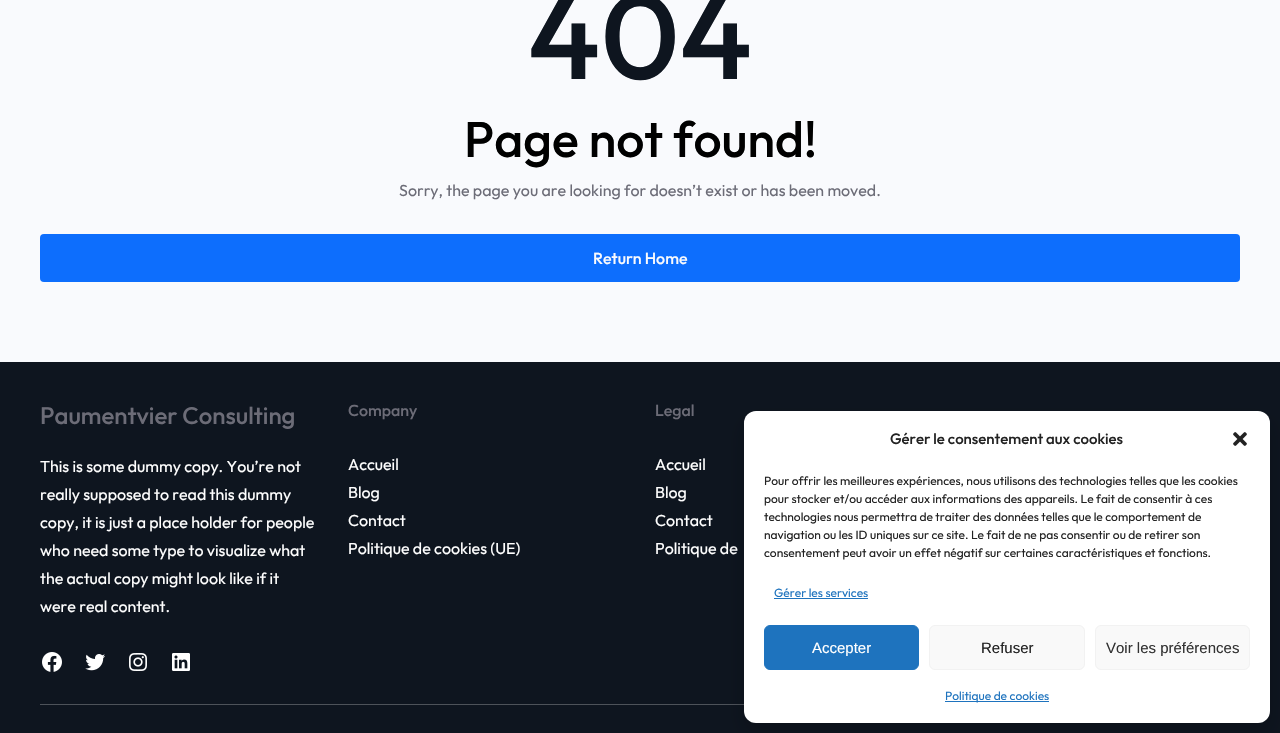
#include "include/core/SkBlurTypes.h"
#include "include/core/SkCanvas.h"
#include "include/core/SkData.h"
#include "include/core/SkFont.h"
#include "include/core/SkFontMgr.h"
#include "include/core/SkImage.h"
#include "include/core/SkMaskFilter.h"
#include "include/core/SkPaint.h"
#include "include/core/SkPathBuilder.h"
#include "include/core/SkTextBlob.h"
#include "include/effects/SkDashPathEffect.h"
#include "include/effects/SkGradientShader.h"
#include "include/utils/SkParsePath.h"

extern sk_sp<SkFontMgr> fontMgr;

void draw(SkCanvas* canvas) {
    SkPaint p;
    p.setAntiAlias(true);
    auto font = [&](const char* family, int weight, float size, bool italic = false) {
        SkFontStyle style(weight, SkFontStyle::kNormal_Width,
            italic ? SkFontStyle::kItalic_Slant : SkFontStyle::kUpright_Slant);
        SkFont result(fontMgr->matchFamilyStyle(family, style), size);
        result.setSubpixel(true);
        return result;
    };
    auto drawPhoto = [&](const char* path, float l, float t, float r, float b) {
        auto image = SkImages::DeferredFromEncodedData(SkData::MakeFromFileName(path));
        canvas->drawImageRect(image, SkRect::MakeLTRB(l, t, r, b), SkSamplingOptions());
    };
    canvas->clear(0xFFF9FAFD);
    auto font1 = font("Outfit", 500, 121);
    p.setColor(0xFF0E151F);
    canvas->drawString("404", 528, 79, font1, p);
    auto font2 = font("Outfit", 500, 50);
    p.setColor(0xFF000000);
    canvas->drawString("Page not found!", 464, 157, font2, p);
    auto font3 = font("Outfit", 400, 16);
    p.setColor(0xFF6C6C77);
    canvas->drawString("Sorry, the page you are looking for doesn’t exist or has been moved.", 399, 196, font3, p);
    p.setColor(0xFF0D6EFD);
    canvas->drawRoundRect(SkRect::MakeLTRB(40, 234, 1240, 282), 4, 4, p);
    auto font4 = font("Outfit", 500, 16);
    p.setColor(0xFFF9FAFD);
    canvas->drawString("Return Home", 593, 264, font4, p);
    p.setColor(0xFF0E151F);
    canvas->drawRect(SkRect::MakeLTRB(0, 362, 1280, 733), p);
    auto font5 = font("Outfit", 500, 24);
    p.setColor(0xFF6C6C77);
    canvas->drawString("Paumentvier Consulting", 40, 424, font5, p);
    p.setColor(0xFFFFFFFF);
    {
        const struct { const char* s; float x, y; } items[] = {
            {"This is some dummy copy. You’re not", 40, 472},
            {"really supposed to read this dummy", 40, 500},
            {"copy, it is just a place holder for people", 40, 528},
            {"who need some type to visualize what", 40, 556},
            {"the actual copy might look like if it", 40, 584},
            {"were real content.", 40, 612},
        };
        for (auto [s, x, y] : items) {
            canvas->drawString(s, x, y, font3, p);
        }
    }
    drawPhoto("media/1.png", 42, 652, 62, 672);
    drawPhoto("media/2.png", 85, 654, 105, 671);
    drawPhoto("media/3.png", 129, 653, 147, 671);
    drawPhoto("media/4.png", 172, 653, 190, 671);
    p.setColor(0xFF6C6C77);
    canvas->drawString("Company", 348, 416, font4, p);
    p.setColor(0xFFFFFFFF);
    {
        const struct { const char* s; float x, y; } items[] = {
            {"Accueil", 348, 470},
            {"Blog", 348, 498},
            {"Contact", 348, 526},
            {"Politique de cookies (UE)", 348, 554},
        };
        for (auto [s, x, y] : items) {
            canvas->drawString(s, x, y, font3, p);
        }
    }
    p.setColor(0xFF6C6C77);
    canvas->drawString("Legal", 655, 416, font4, p);
    p.setColor(0xFFFFFFFF);
    {
        const struct { const char* s; float x, y; } items[] = {
            {"Accueil", 655, 470},
            {"Blog", 655, 498},
            {"Contact", 655, 526},
            {"Politique de", 655, 554},
        };
        for (auto [s, x, y] : items) {
            canvas->drawString(s, x, y, font3, p);
        }
    }
    p.setColor(0xFF4D5259);
    canvas->drawRect(SkRect::MakeLTRB(40, 704, 744, 705), p);
    p.setColor(0x30000000);
    p.setMaskFilter(SkMaskFilter::MakeBlur(kNormal_SkBlurStyle, 10));
    canvas->drawRoundRect(SkRect::MakeLTRB(744, 421, 1270, 733), 12, 12, p);
    p.setMaskFilter(nullptr);
    p.setColor(0xFFFFFFFF);
    canvas->drawRoundRect(SkRect::MakeLTRB(744, 411, 1270, 723), 12, 12, p);
    auto font6 = font("Outfit", 500, 15);
    p.setColor(0xFF222222);
    canvas->drawString("Gérer le consentement aux cookies", 890, 444, font6, p);
    drawPhoto("media/5.png", 1233, 432, 1247, 446);
    auto font7 = font("Outfit", 400, 12);
    {
        const struct { const char* s; float x, y; } items[] = {
            {"Pour offrir les meilleures expériences, nous utilisons des technologies telles que les cookies", 764, 485},
            {"pour stocker et/ou accéder aux informations des appareils. Le fait de consentir à ces", 764, 503},
            {"technologies nous permettra de traiter des données telles que le comportement de", 764, 521},
            {"navigation ou les ID uniques sur ce site. Le fait de ne pas consentir ou de retirer son", 764, 539},
            {"consentement peut avoir un effet négatif sur certaines caractéristiques et fonctions.", 764, 557},
        };
        for (auto [s, x, y] : items) {
            canvas->drawString(s, x, y, font7, p);
        }
    }
    p.setColor(0xFF1E73BE);
    canvas->drawString("Gérer les services", 774, 597, font7, p);
    canvas->drawRect(SkRect::MakeLTRB(774, 598, 868, 599), p);
    canvas->drawRoundRect(SkRect::MakeLTRB(764.5f, 625.5f, 918.5f, 669.5f), 5.5f, 5.5f, p);
    p.setStyle(SkPaint::kStroke_Style);
    p.setStrokeWidth(1);
    canvas->drawRoundRect(SkRect::MakeLTRB(764.5f, 625.5f, 918.5f, 669.5f), 5.5f, 5.5f, p);
    auto font8 = font("Liberation Sans", 400, 15);
    p.setStyle(SkPaint::kFill_Style);
    p.setColor(0xFFFFFFFF);
    canvas->drawString("Accepter", 812, 653, font8, p);
    p.setColor(0xFFF9F9F9);
    canvas->drawRoundRect(SkRect::MakeLTRB(929.5f, 625.5f, 1084.5f, 669.5f), 5.5f, 5.5f, p);
    p.setStyle(SkPaint::kStroke_Style);
    p.setColor(0xFFF2F2F2);
    canvas->drawRoundRect(SkRect::MakeLTRB(929.5f, 625.5f, 1084.5f, 669.5f), 5.5f, 5.5f, p);
    p.setStyle(SkPaint::kFill_Style);
    p.setColor(0xFF222222);
    canvas->drawString("Refuser", 981, 653, font8, p);
    p.setColor(0xFFF9F9F9);
    canvas->drawRoundRect(SkRect::MakeLTRB(1095.5f, 625.5f, 1249.5f, 669.5f), 5.5f, 5.5f, p);
    p.setStyle(SkPaint::kStroke_Style);
    p.setColor(0xFFF2F2F2);
    canvas->drawRoundRect(SkRect::MakeLTRB(1095.5f, 625.5f, 1249.5f, 669.5f), 5.5f, 5.5f, p);
    p.setStyle(SkPaint::kFill_Style);
    p.setColor(0xFF333333);
    canvas->drawString("Voir les préférences", 1106, 653, font8, p);
    p.setColor(0xFF1E73BE);
    canvas->drawRect(SkRect::MakeLTRB(945, 701, 1049, 702), p);
    canvas->drawString("Politique de cookies", 945, 700, font7, p);
}
